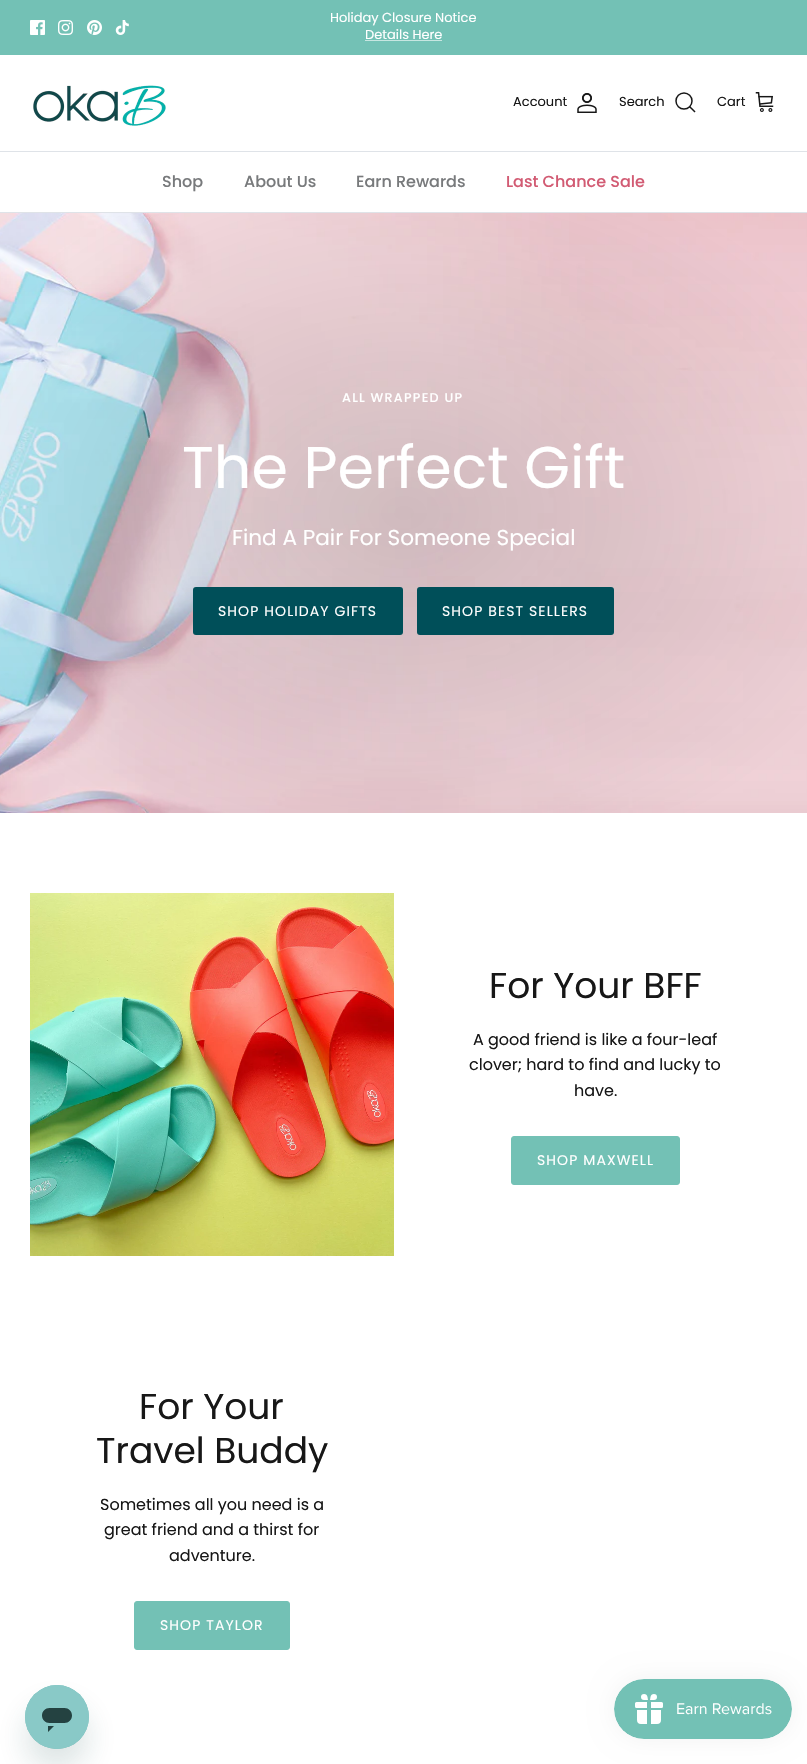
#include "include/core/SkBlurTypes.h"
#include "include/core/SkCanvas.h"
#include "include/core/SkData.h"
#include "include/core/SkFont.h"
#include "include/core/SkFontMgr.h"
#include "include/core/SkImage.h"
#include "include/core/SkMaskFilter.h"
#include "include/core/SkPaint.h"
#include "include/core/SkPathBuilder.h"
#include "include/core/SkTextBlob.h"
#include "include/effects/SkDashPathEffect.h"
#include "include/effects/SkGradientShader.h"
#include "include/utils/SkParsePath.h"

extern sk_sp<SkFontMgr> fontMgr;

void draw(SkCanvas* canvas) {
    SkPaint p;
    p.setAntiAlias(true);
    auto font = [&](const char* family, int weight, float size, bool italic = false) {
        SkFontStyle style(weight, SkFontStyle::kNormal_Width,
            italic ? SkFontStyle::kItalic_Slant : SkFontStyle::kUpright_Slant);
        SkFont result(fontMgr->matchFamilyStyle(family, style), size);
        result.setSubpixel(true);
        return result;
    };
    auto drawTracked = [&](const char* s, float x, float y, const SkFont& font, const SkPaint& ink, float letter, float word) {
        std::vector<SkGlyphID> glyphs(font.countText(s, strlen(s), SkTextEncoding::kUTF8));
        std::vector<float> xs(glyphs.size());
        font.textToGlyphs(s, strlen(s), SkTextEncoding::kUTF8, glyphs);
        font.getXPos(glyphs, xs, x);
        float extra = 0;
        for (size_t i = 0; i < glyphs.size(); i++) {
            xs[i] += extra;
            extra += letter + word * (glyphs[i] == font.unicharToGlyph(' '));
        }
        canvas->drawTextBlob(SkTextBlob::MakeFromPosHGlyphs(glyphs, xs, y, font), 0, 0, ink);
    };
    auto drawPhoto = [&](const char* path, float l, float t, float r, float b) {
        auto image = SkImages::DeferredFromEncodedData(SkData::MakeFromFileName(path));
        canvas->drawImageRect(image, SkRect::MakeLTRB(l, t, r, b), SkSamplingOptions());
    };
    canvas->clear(0xFFFFFFFF);
    p.setColor(0xFF73C1B5);
    canvas->drawRect(SkRect::MakeLTRB(0, 0, 807, 55), p);
    drawPhoto("media/1.png", 30, 20, 45, 35);
    drawPhoto("media/2.png", 58, 20, 73, 35);
    drawPhoto("media/3.png", 87, 20, 102, 35);
    drawPhoto("media/4.png", 115, 20, 129, 35);
    auto font1 = font("Poppins", 400, 13);
    p.setColor(0xFFFFFFFF);
    canvas->drawString("Holiday Closure Notice", 330, 22, font1, p);
    canvas->drawString("Details Here", 365, 39, font1, p);
    p.setColor(0xFFC7E6E1);
    canvas->drawRect(SkRect::MakeLTRB(365, 40, 442, 41), p);
    p.setColor(0xFFDFE3E8);
    canvas->drawRect(SkRect::MakeLTRB(0, 151, 807, 152), p);
    drawPhoto("media/5.png", 33, 85, 166, 126);
    p.setColor(0xFF171717);
    canvas->drawString("Account", 513, 106, font1, p);
    drawPhoto("media/6.png", 577, 93, 597, 113);
    canvas->drawString("Search", 619, 106, font1, p);
    p.setStyle(SkPaint::kStroke_Style);
    p.setStrokeWidth(1.5f);
    canvas->drawCircle(684, 101, 8, p);
    p.setStrokeCap(SkPaint::kSquare_Cap);
    canvas->drawPath(SkPathBuilder().moveTo(690, 107).lineTo(694.5f, 111.5f).detach(), p);
    p.setStyle(SkPaint::kFill_Style);
    canvas->drawString("Cart", 717, 106, font1, p);
    drawPhoto("media/7.png", 755, 92, 774, 112);
    p.setColor(0xFFDFE3E8);
    canvas->drawRect(SkRect::MakeLTRB(0, 212, 807, 213), p);
    auto font2 = font("Poppins", 500, 16);
    p.setColor(0xFF787A7C);
    {
        const struct { const char* s; float x, y; } items[] = {
            {"Shop", 162, 187},
            {"About Us", 244, 187},
            {"Earn Rewards", 356, 187},
        };
        for (auto [s, x, y] : items) {
            canvas->drawString(s, x, y, font2, p);
        }
    }
    p.setColor(0xFFD25B73);
    canvas->drawString("Last Chance Sale", 506, 187, font2, p);
    drawPhoto("media/8.png", 0, 213, 807, 813);
    auto font3 = font("Poppins", 500, 12.75f);
    p.setColor(0xFFFFFFFF);
    drawTracked("ALL WRAPPED UP", 342, 402, font3, p, 1.25f, 0);
    auto font4 = font("Poppins", 400, 58.75f);
    canvas->drawString("The Perfect Gift", 182, 488, font4, p);
    auto font5 = font("Poppins", 400, 21.6f);
    canvas->drawString("Find A Pair For Someone Special", 232, 545, font5, p);
    p.setColor(0xFF004F59);
    canvas->drawRoundRect(SkRect::MakeLTRB(193, 587, 403, 635), 3, 3, p);
    auto font6 = font("Poppins", 400, 14);
    p.setColor(0xFFFFFFFF);
    drawTracked("SHOP HOLIDAY GIFTS", 218, 616, font6, p, 1.1f, 0);
    p.setColor(0xFF004F59);
    canvas->drawRoundRect(SkRect::MakeLTRB(417, 587, 614, 635), 3, 3, p);
    p.setColor(0xFFFFFFFF);
    drawTracked("SHOP BEST SELLERS", 442, 616, font6, p, 1.1f, 0);
    drawPhoto("media/9.png", 30, 893, 394, 1256);
    auto font7 = font("Poppins", 400, 36);
    p.setColor(0xFF171717);
    canvas->drawString("For Your BFF", 489, 998, font7, p);
    auto font8 = font("Poppins", 400, 16);
    {
        const struct { const char* s; float x, y; } items[] = {
            {"A good friend is like a four-leaf", 473, 1045},
            {"clover; hard to find and lucky to", 469, 1070},
            {"have.", 574, 1096},
        };
        for (auto [s, x, y] : items) {
            canvas->drawString(s, x, y, font8, p);
        }
    }
    p.setColor(0xFF73C1B5);
    canvas->drawRoundRect(SkRect::MakeLTRB(511.5f, 1136.5f, 679.5f, 1184.5f), 2.5f, 2.5f, p);
    p.setStyle(SkPaint::kStroke_Style);
    p.setStrokeWidth(1);
    p.setStrokeCap(SkPaint::kButt_Cap);
    canvas->drawRoundRect(SkRect::MakeLTRB(511.5f, 1136.5f, 679.5f, 1184.5f), 2.5f, 2.5f, p);
    p.setStyle(SkPaint::kFill_Style);
    p.setColor(0xFFFFFFFF);
    drawTracked("SHOP MAXWELL", 537, 1165, font6, p, 1.1f, 0);
    p.setColor(0xFF171717);
    canvas->drawString("For Your", 139, 1419, font7, p);
    canvas->drawString("Travel Buddy", 96, 1463, font7, p);
    {
        const struct { const char* s; float x, y; } items[] = {
            {"Sometimes all you need is a", 100, 1510},
            {"great friend and a thirst for", 104, 1535},
            {"adventure.", 169, 1561},
        };
        for (auto [s, x, y] : items) {
            canvas->drawString(s, x, y, font8, p);
        }
    }
    p.setColor(0xFF73C1B5);
    canvas->drawRoundRect(SkRect::MakeLTRB(134.5f, 1601.5f, 289.5f, 1649.5f), 2.5f, 2.5f, p);
    p.setStyle(SkPaint::kStroke_Style);
    canvas->drawRoundRect(SkRect::MakeLTRB(134.5f, 1601.5f, 289.5f, 1649.5f), 2.5f, 2.5f, p);
    p.setStyle(SkPaint::kFill_Style);
    p.setColor(0xFFFFFFFF);
    drawTracked("SHOP TAYLOR", 160, 1630, font6, p, 1.1f, 0);
    p.setColor(0x2617494D);
    p.setMaskFilter(SkMaskFilter::MakeBlur(kNormal_SkBlurStyle, 15));
    canvas->drawRoundRect(SkRect::MakeLTRB(25, 1705, 89, 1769), 32, 32, p);
    p.setMaskFilter(nullptr);
    drawPhoto("media/10.png", 25, 1685, 89, 1749);
    p.setColor(0x0D000000);
    p.setMaskFilter(SkMaskFilter::MakeBlur(kNormal_SkBlurStyle, 12.5f));
    canvas->drawRoundRect(SkRect::MakeLTRB(614, 1679, 792, 1739), 30, 30, p);
    p.setMaskFilter(nullptr);
    drawPhoto("media/11.png", 614, 1679, 792, 1739);
}
